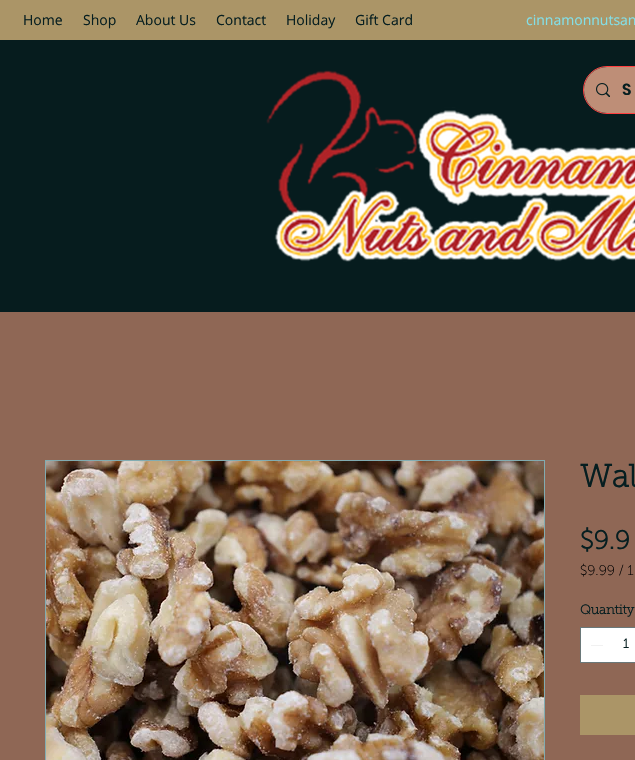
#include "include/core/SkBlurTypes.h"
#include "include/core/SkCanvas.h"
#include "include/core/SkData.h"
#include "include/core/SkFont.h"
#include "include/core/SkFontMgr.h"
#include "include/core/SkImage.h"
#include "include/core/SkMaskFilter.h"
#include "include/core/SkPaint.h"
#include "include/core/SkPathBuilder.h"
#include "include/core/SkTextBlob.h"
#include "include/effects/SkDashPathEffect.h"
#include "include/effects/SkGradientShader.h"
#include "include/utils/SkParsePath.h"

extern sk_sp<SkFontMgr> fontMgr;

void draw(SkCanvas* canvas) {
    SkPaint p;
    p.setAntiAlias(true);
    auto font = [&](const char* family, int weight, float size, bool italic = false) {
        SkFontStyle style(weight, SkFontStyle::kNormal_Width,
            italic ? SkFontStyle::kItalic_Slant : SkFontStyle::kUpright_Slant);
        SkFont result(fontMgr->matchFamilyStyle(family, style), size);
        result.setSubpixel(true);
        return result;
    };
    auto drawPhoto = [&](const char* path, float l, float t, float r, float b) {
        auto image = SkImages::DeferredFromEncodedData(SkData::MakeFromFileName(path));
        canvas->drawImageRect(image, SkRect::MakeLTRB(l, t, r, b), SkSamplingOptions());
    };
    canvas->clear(0xFF8F6755);
    p.setColor(0xFFAB9567);
    canvas->drawRect(SkRect::MakeLTRB(0, 0, 635, 40), p);
    auto font1 = font("Open Sans", 400, 14);
    p.setColor(0xFF061E20);
    {
        const struct { const char* s; float x, y; } items[] = {
            {"Home", 23, 25},
            {"Shop", 83, 25},
            {"About Us", 136, 25},
            {"Contact", 216, 25},
            {"Holiday", 286, 25},
            {"Gift Card", 355, 25},
        };
        for (auto [s, x, y] : items) {
            canvas->drawString(s, x, y, font1, p);
        }
    }
    p.setColor(0xFF83DFE7);
    canvas->drawString("cinnamonnutsan", 526, 25, font1, p);
    p.setColor(0xFF061C1E);
    canvas->drawRect(SkRect::MakeLTRB(0, 40, 635, 312), p);
    drawPhoto("media/1.png", 266, 70, 635, 262);
    p.setStyle(SkPaint::kStroke_Style);
    p.setStrokeWidth(1);
    p.setColor(0xFFFF4040);
    canvas->drawRoundRect(SkRect::MakeLTRB(583.5f, 66.5f, 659.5f, 113.5f), 23.5f, 23.5f, p);
    p.setStyle(SkPaint::kFill_Style);
    p.setColor(0xFFBE8E77);
    canvas->drawRoundRect(SkRect::MakeLTRB(584, 67, 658, 113), 23, 23, p);
    drawPhoto("media/2.png", 596, 83, 610, 97);
    auto font2 = font("Poppins", 600, 16);
    p.setColor(0xFF061E20);
    canvas->drawString("S", 622, 95, font2, p);
    p.setStyle(SkPaint::kStroke_Style);
    p.setColor(0xFF82ACB1);
    canvas->drawRect(SkRect::MakeLTRB(45.5f, 460.5f, 544.5f, 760.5f), p);
    drawPhoto("media/3.png", 46, 461, 544, 760);
    auto font3 = font("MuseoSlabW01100", 700, 32);
    p.setStyle(SkPaint::kFill_Style);
    p.setColor(0xFF061E20);
    canvas->drawString("Wal", 580, 487, font3, p);
    auto font4 = font("MuseoSlabW01100", 700, 26);
    canvas->drawString("$9.9", 580, 549, font4, p);
    auto font5 = font("MuseoSlabW01100", 100, 14);
    p.setColor(0xFF000000);
    canvas->drawString("$9.99 / 1", 580, 575, font5, p);
    auto font6 = font("MuseoSlabW01100", 700, 13);
    p.setColor(0xFF061E20);
    canvas->drawString("Quantity", 580, 614, font6, p);
    p.setColor(0xFFFFFFFF);
    canvas->drawRect(SkRect::MakeLTRB(580.5f, 627.5f, 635.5f, 662.5f), p);
    p.setStyle(SkPaint::kStroke_Style);
    p.setColor(0xFF6A7879);
    canvas->drawRect(SkRect::MakeLTRB(580.5f, 627.5f, 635.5f, 662.5f), p);
    p.setStyle(SkPaint::kFill_Style);
    p.setColor(0xFFE3E3E3);
    canvas->drawPath(SkPathBuilder(SkPathFillType::kEvenOdd).moveTo(603, 645).lineTo(603, 645.5f).lineTo(591, 645.5f).lineTo(591, 645).close().detach(), p);
    p.setColor(0xFF061E20);
    canvas->drawString("1", 623, 648, font6, p);
    p.setColor(0xFFAB9567);
    canvas->drawRect(SkRect::MakeLTRB(580, 695, 635, 735), p);
}
